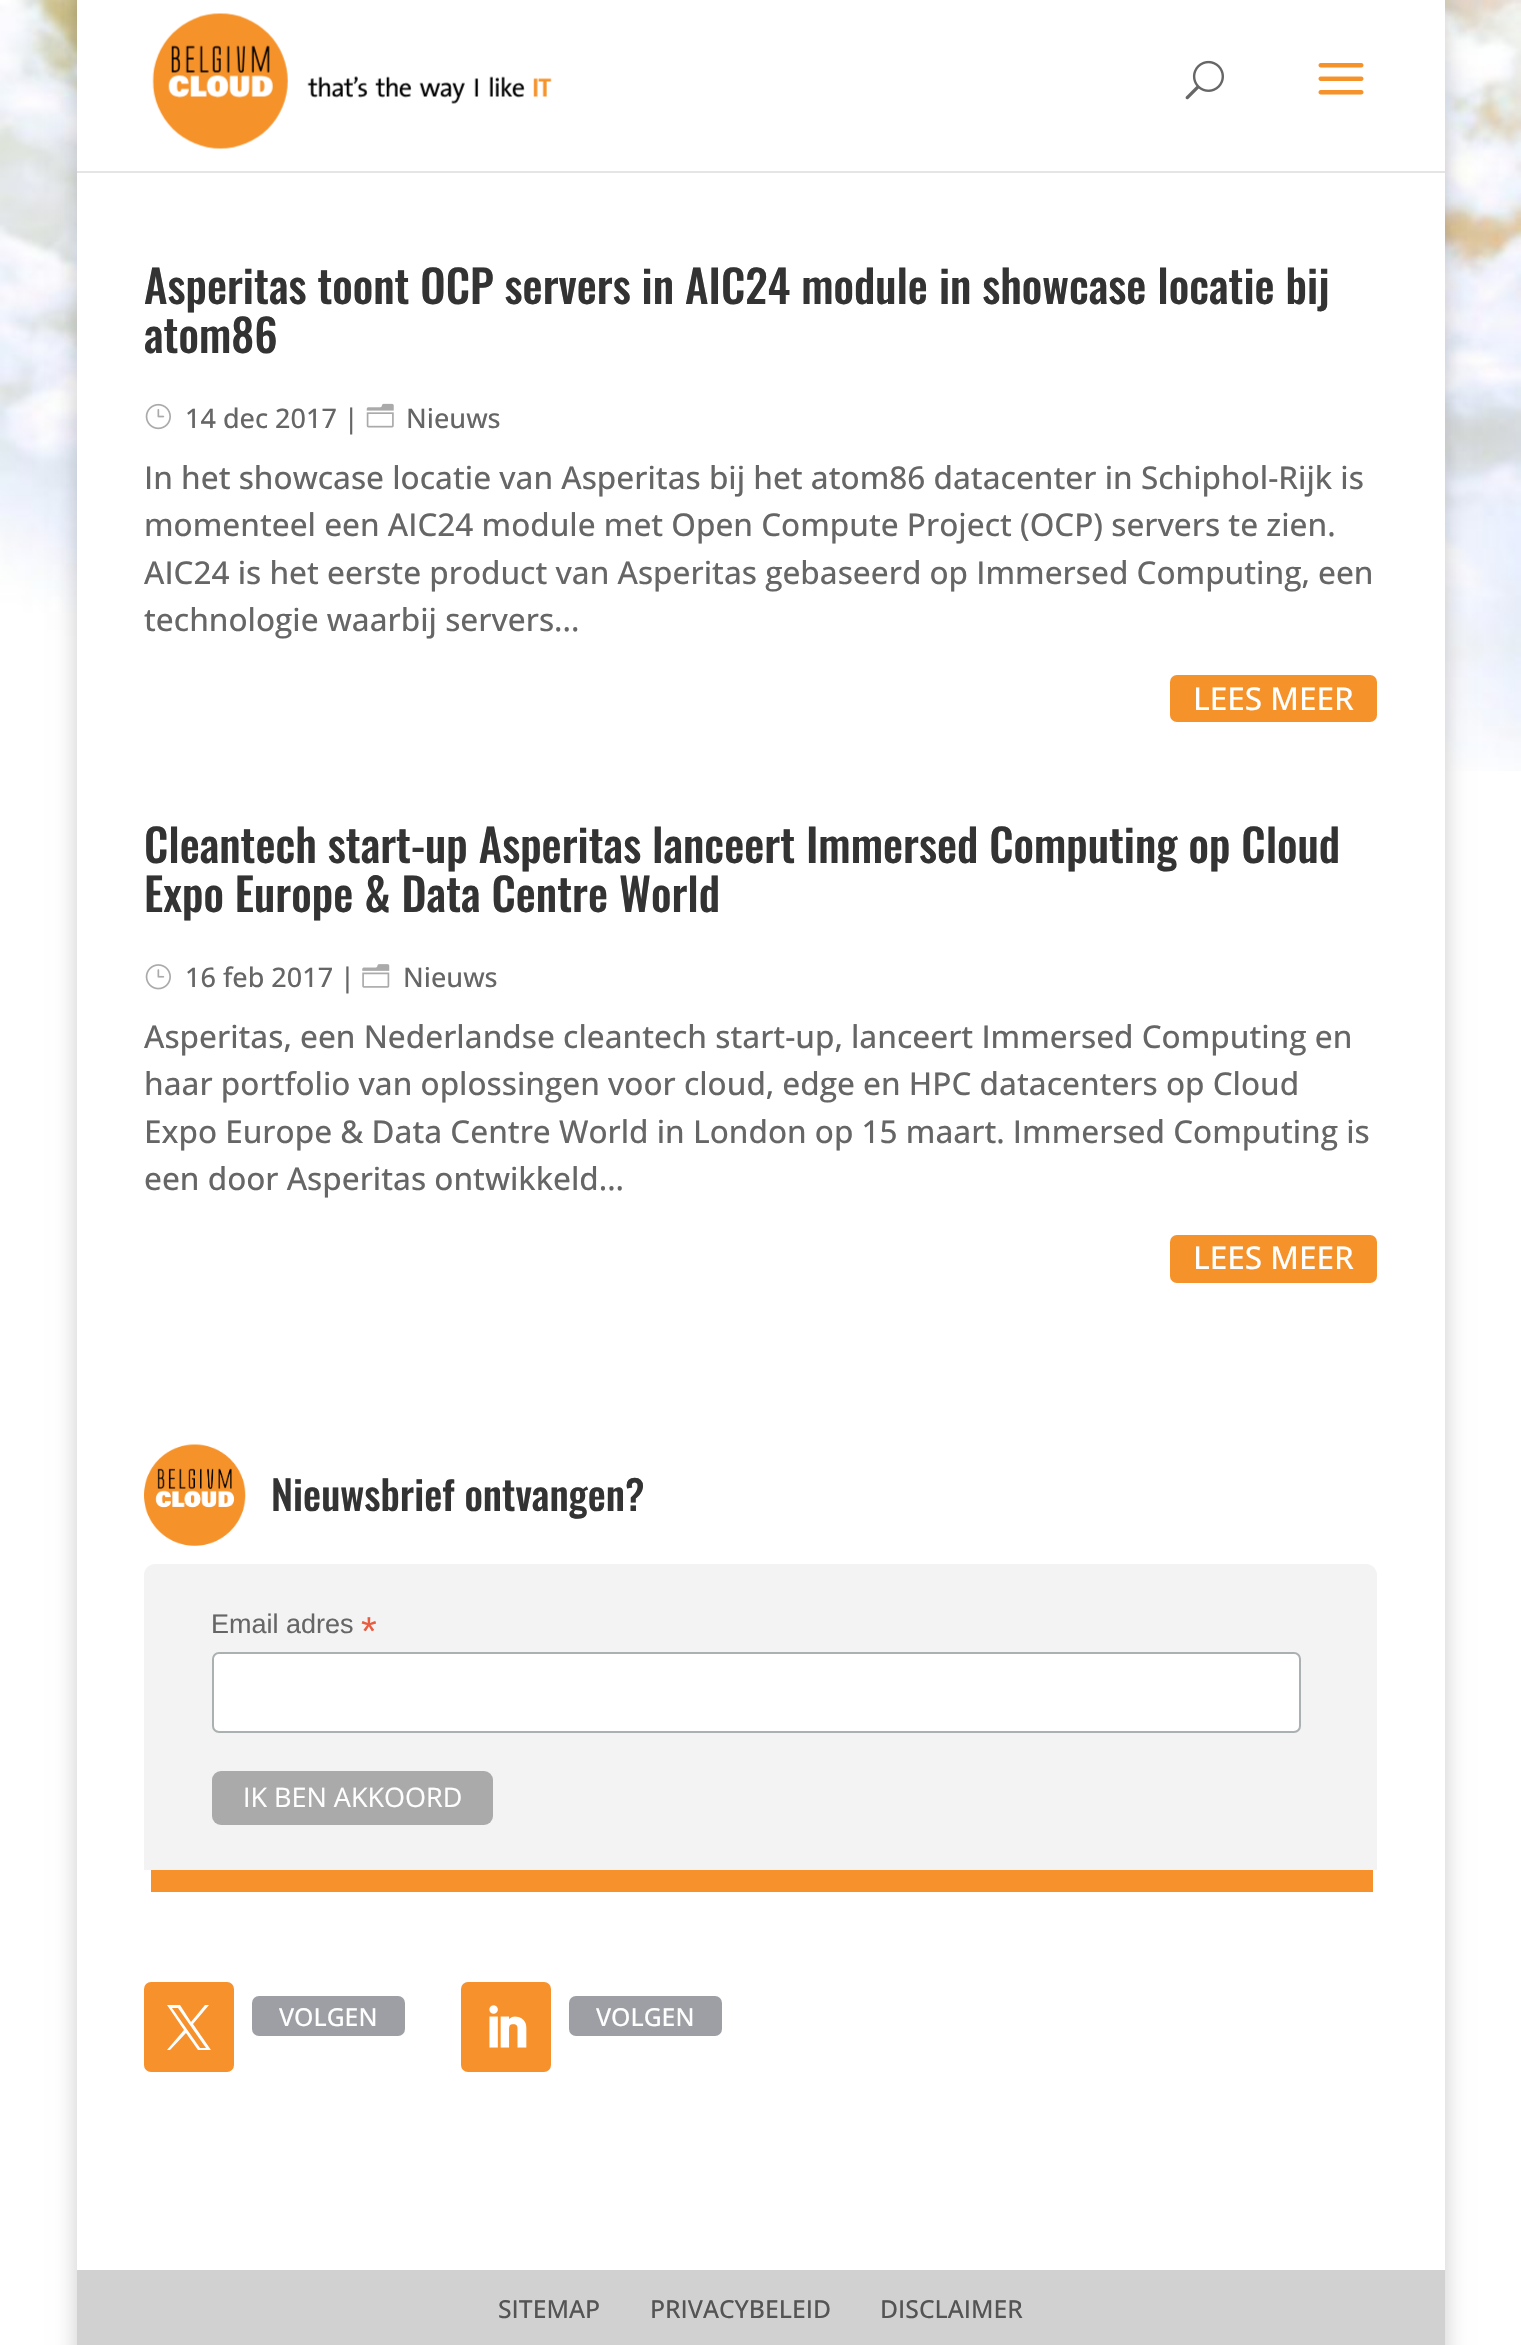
#include "include/core/SkBlurTypes.h"
#include "include/core/SkCanvas.h"
#include "include/core/SkData.h"
#include "include/core/SkFont.h"
#include "include/core/SkFontMgr.h"
#include "include/core/SkImage.h"
#include "include/core/SkMaskFilter.h"
#include "include/core/SkPaint.h"
#include "include/core/SkPathBuilder.h"
#include "include/core/SkTextBlob.h"
#include "include/effects/SkDashPathEffect.h"
#include "include/effects/SkGradientShader.h"
#include "include/utils/SkParsePath.h"

extern sk_sp<SkFontMgr> fontMgr;

void draw(SkCanvas* canvas) {
    SkPaint p;
    p.setAntiAlias(true);
    auto font = [&](const char* family, int weight, float size, bool italic = false) {
        SkFontStyle style(weight, SkFontStyle::kNormal_Width,
            italic ? SkFontStyle::kItalic_Slant : SkFontStyle::kUpright_Slant);
        SkFont result(fontMgr->matchFamilyStyle(family, style), size);
        result.setSubpixel(true);
        return result;
    };
    auto drawPhoto = [&](const char* path, float l, float t, float r, float b) {
        auto image = SkImages::DeferredFromEncodedData(SkData::MakeFromFileName(path));
        canvas->drawImageRect(image, SkRect::MakeLTRB(l, t, r, b), SkSamplingOptions());
    };
    canvas->clear(0xFFFFFFFF);
    drawPhoto("media/1.png", 0, 0, 1521, 771);
    p.setColor(0x33000000);
    p.setMaskFilter(SkMaskFilter::MakeBlur(kNormal_SkBlurStyle, 11));
    canvas->drawRect(SkRect::MakeLTRB(77, -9, 1445, 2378), p);
    p.setMaskFilter(nullptr);
    p.setColor(0xFFFFFFFF);
    canvas->drawRect(SkRect::MakeLTRB(77, 171, 1445, 2270), p);
    p.setColor(0x1A000000);
    canvas->drawPath(SkPathBuilder().moveTo(77, 171).lineTo(77, 173).lineTo(1445, 173).lineTo(1445, -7).lineTo(1444, -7).lineTo(1444, 171).close().detach(), p);
    p.setColor(0xFFFFFFFF);
    canvas->drawRect(SkRect::MakeLTRB(77, 0, 1445, 171), p);
    drawPhoto("media/2.png", 152, 13, 552, 149);
    drawPhoto("media/3.png", 1185, 60, 1224, 100);
    drawPhoto("media/4.png", 1318, 63, 1364, 95);
    auto font1 = font("Oswald", 500, 45);
    p.setColor(0xFF333333);
    canvas->drawString("Asperitas toont OCP servers in AIC24 module in showcase locatie bij", 144, 304, font1, p);
    canvas->drawString("atom86", 144, 353, font1, p);
    drawPhoto("media/5.png", 145, 403, 171, 430);
    auto font2 = font("Open Sans", 500, 27);
    p.setColor(0xFF666666);
    canvas->drawString("14 dec 2017 |", 185, 428, font2, p);
    drawPhoto("media/6.png", 366, 403, 394, 428);
    canvas->drawString("Nieuws", 406, 428, font2, p);
    auto font3 = font("Open Sans", 500, 31.5f);
    {
        const struct { const char* s; float x, y; } items[] = {
            {"In het showcase locatie van Asperitas bij het atom86 datacenter in Schiphol-Rijk is", 144, 489},
            {"momenteel een AIC24 module met Open Compute Project (OCP) servers te zien.", 144, 536},
            {"AIC24 is het eerste product van Asperitas gebaseerd op Immersed Computing, een", 144, 584},
            {"technologie waarbij servers...", 144, 631},
        };
        for (auto [s, x, y] : items) {
            canvas->drawString(s, x, y, font3, p);
        }
    }
    p.setColor(0xFFF5922A);
    canvas->drawRoundRect(SkRect::MakeLTRB(1170, 675, 1377, 722), 7, 7, p);
    p.setColor(0xFFFFFFFF);
    canvas->drawString("LEES MEER", 1193, 710, font3, p);
    p.setColor(0xFF333333);
    canvas->drawString("Cleantech start-up Asperitas lanceert Immersed Computing op Cloud", 144, 863, font1, p);
    canvas->drawString("Expo Europe & Data Centre World", 144, 912, font1, p);
    drawPhoto("media/7.png", 145, 964, 171, 990);
    p.setColor(0xFF666666);
    canvas->drawString("16 feb 2017 |", 185, 987, font2, p);
    drawPhoto("media/8.png", 362, 964, 390, 988);
    canvas->drawString("Nieuws", 403, 987, font2, p);
    {
        const struct { const char* s; float x, y; } items[] = {
            {"Asperitas, een Nederlandse cleantech start-up, lanceert Immersed Computing en", 144, 1048},
            {"haar portfolio van oplossingen voor cloud, edge en HPC datacenters op Cloud", 144, 1095},
            {"Expo Europe & Data Centre World in London op 15 maart. Immersed Computing is", 144, 1143},
            {"een door Asperitas ontwikkeld...", 144, 1190},
        };
        for (auto [s, x, y] : items) {
            canvas->drawString(s, x, y, font3, p);
        }
    }
    p.setColor(0xFFF5922A);
    canvas->drawRoundRect(SkRect::MakeLTRB(1170, 1235, 1377, 1283), 7, 7, p);
    p.setColor(0xFFFFFFFF);
    canvas->drawString("LEES MEER", 1193, 1269, font3, p);
    drawPhoto("media/9.png", 144, 1444, 246, 1546);
    auto font4 = font("Oswald", 500, 40.5f);
    p.setColor(0xFF333333);
    canvas->drawString("Nieuwsbrief ontvangen?", 271, 1511, font4, p);
    p.setColor(0xFFF3F3F3);
    canvas->drawPath(SkPathBuilder().moveTo(155, 1564).lineTo(1366, 1564).cubicTo(1372, 1564, 1377, 1569, 1377, 1575).lineTo(1377, 1870).lineTo(144, 1870).lineTo(144, 1575).cubicTo(144, 1569, 149, 1564, 155, 1564).close().detach(), p);
    p.setColor(0xFFF6912B);
    canvas->drawRect(SkRect::MakeLTRB(151, 1870, 1373, 1892), p);
    auto font5 = font("Liberation Sans", 400, 27);
    p.setColor(0xFF666666);
    canvas->drawString("Email adres", 211, 1633, font5, p);
    auto font6 = font("Liberation Sans", 400, 40.5f);
    p.setColor(0xFFE85C41);
    canvas->drawString("*", 361, 1645, font6, p);
    p.setColor(0xFFFFFFFF);
    canvas->drawRoundRect(SkRect::MakeLTRB(213, 1653, 1300, 1732), 6, 6, p);
    p.setStyle(SkPaint::kStroke_Style);
    p.setStrokeWidth(2);
    p.setColor(0xFFABB0B2);
    canvas->drawRoundRect(SkRect::MakeLTRB(213, 1653, 1300, 1732), 6, 6, p);
    p.setStyle(SkPaint::kFill_Style);
    p.setColor(0xFFAAAAAA);
    canvas->drawRoundRect(SkRect::MakeLTRB(212, 1771, 493, 1825), 9, 9, p);
    auto font7 = font("Open Sans", 400, 27);
    p.setColor(0xFFFFFFFF);
    canvas->drawString("IK BEN AKKOORD", 243, 1807, font7, p);
    p.setColor(0xFFF6912B);
    canvas->drawRoundRect(SkRect::MakeLTRB(144, 1982, 234, 2072), 7, 7, p);
    p.setColor(0xFFFFFFFF);
    canvas->drawPath(SkPathBuilder().moveTo(167, 2005).lineTo(184, 2030).lineTo(167, 2050).lineTo(170, 2050).lineTo(186, 2033).lineTo(198, 2050).lineTo(211, 2050).lineTo(193, 2024).lineTo(209, 2005).lineTo(205, 2005).lineTo(191, 2022).lineTo(180, 2005).close().moveTo(172, 2008).lineTo(178, 2008).lineTo(206, 2048).lineTo(200, 2048).close().detach(), p);
    p.setColor(0xFF9D9FA5);
    canvas->drawRoundRect(SkRect::MakeLTRB(252, 1996, 405, 2036), 7, 7, p);
    auto font8 = font("Open Sans", 500, 24.75f);
    p.setColor(0xFFFFFFFF);
    canvas->drawString("VOLGEN", 279, 2026, font8, p);
    p.setColor(0xFFF6912B);
    canvas->drawRoundRect(SkRect::MakeLTRB(461, 1982, 551, 2072), 7, 7, p);
    drawPhoto("media/10.png", 489, 2005, 527, 2048);
    p.setColor(0xFF9D9FA5);
    canvas->drawRoundRect(SkRect::MakeLTRB(569, 1996, 722, 2036), 7, 7, p);
    p.setColor(0xFFFFFFFF);
    canvas->drawString("VOLGEN", 596, 2026, font8, p);
    p.setColor(0xFFD1D1D1);
    canvas->drawRect(SkRect::MakeLTRB(77, 2270, 1445, 2345), p);
    p.setColor(0xFF545454);
    {
        const struct { const char* s; float x, y; } items[] = {
            {"SITEMAP", 498, 2318},
            {"PRIVACYBELEID", 650, 2318},
            {"DISCLAIMER", 880, 2318},
        };
        for (auto [s, x, y] : items) {
            canvas->drawString(s, x, y, font8, p);
        }
    }
}
